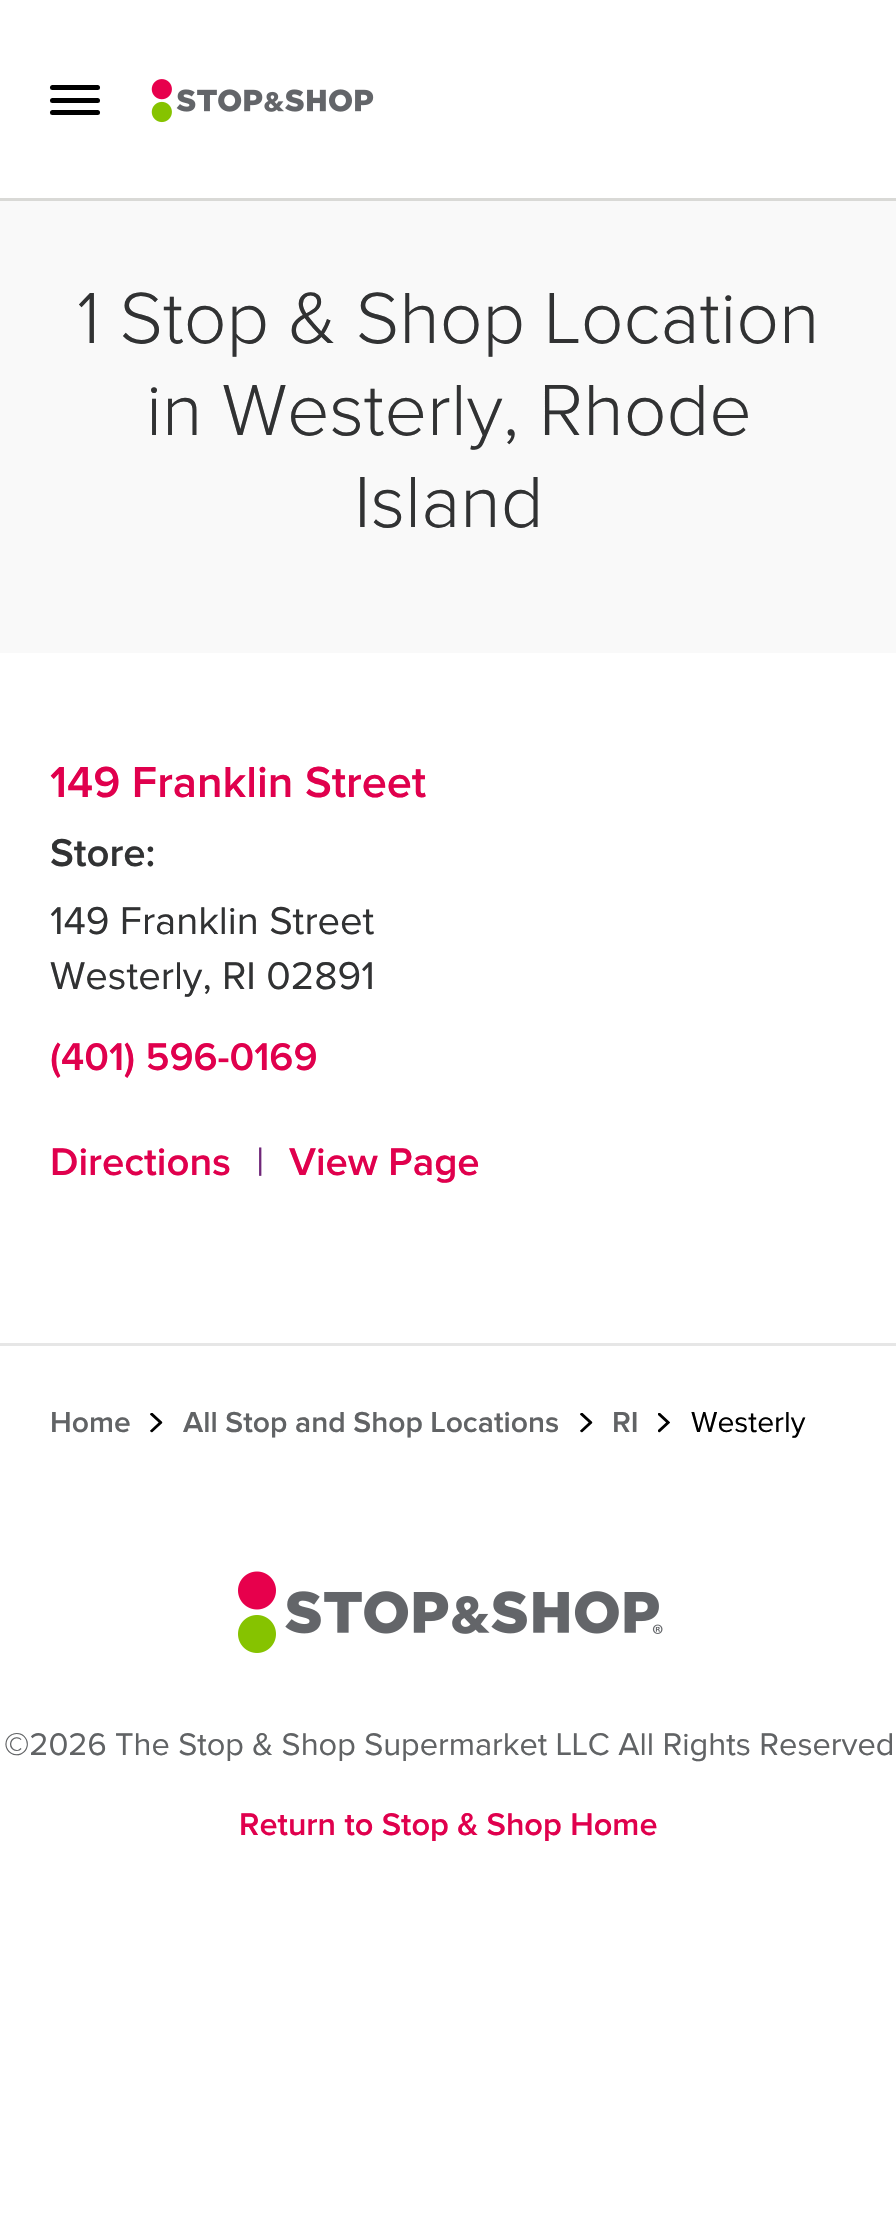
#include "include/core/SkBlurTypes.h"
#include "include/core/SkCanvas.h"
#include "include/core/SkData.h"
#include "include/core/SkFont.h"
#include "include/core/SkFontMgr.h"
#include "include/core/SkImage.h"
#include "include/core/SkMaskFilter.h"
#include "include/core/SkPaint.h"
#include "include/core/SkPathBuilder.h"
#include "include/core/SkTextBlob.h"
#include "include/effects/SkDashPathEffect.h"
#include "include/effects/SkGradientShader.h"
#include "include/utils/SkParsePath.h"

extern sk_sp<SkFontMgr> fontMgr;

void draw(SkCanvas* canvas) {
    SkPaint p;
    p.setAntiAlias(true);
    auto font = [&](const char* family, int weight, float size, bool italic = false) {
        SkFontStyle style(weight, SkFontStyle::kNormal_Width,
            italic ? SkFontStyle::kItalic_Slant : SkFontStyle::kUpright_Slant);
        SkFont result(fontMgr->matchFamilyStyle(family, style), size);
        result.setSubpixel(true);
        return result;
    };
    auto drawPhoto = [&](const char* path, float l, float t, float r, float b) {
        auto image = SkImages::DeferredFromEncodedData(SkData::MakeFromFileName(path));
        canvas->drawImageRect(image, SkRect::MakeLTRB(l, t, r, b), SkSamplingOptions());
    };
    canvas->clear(0xFFFFFFFF);
    p.setColor(0xFFD9D9D6);
    canvas->drawRect(SkRect::MakeLTRB(0, 198, 896, 201), p);
    p.setColor(0xFF000000);
    canvas->drawRoundRect(SkRect::MakeLTRB(50, 85, 100, 90), 2.5f, 2.5f, p);
    canvas->drawRoundRect(SkRect::MakeLTRB(50, 98, 100, 103), 2.5f, 2.5f, p);
    canvas->drawRoundRect(SkRect::MakeLTRB(50, 110, 100, 115), 2.5f, 2.5f, p);
    drawPhoto("media/1.png", 151, 79, 374, 123);
    p.setColor(0xFFF9F9F9);
    canvas->drawRect(SkRect::MakeLTRB(0, 201, 896, 653), p);
    auto font1 = font("Proxima Nova", 300, 75);
    p.setColor(0xFF313233);
    {
        const struct { const char* s; float x, y; } items[] = {
            {"1 Stop & Shop Location", 77, 343},
            {"in Westerly, Rhode", 146, 435},
            {"Island", 354, 527},
        };
        for (auto [s, x, y] : items) {
            canvas->drawString(s, x, y, font1, p);
        }
    }
    auto font2 = font("Proxima Nova", 600, 45);
    p.setColor(0xFFE0004D);
    canvas->drawString("149 Franklin Street", 50, 797, font2, p);
    auto font3 = font("Proxima Nova", 600, 40);
    p.setColor(0xFF313233);
    canvas->drawString("Store:", 50, 866, font3, p);
    auto font4 = font("Proxima Nova", 400, 40);
    canvas->drawString("149 Franklin Street", 50, 934, font4, p);
    canvas->drawString("Westerly, RI 02891", 50, 989, font4, p);
    p.setColor(0xFFE0004D);
    canvas->drawString("(401) 596-0169", 50, 1070, font3, p);
    canvas->drawString("Directions", 50, 1175, font3, p);
    p.setColor(0xFF702779);
    canvas->drawString("|", 256, 1175, font4, p);
    p.setColor(0xFFE0004D);
    canvas->drawString("View Page", 289, 1175, font3, p);
    p.setColor(0xFFE6E6E6);
    canvas->drawRect(SkRect::MakeLTRB(0, 1343, 896, 1346), p);
    auto font5 = font("Proxima Nova", 600, 30);
    p.setColor(0xFF616365);
    canvas->drawString("Home", 50, 1432, font5, p);
    drawPhoto("media/2.png", 150, 1413, 163, 1433);
    canvas->drawString("All Stop and Shop Locations", 183, 1432, font5, p);
    drawPhoto("media/2.png", 580, 1413, 593, 1433);
    canvas->drawString("RI", 612, 1432, font5, p);
    drawPhoto("media/3.png", 658, 1413, 670, 1433);
    auto font6 = font("Proxima Nova", 400, 30);
    p.setColor(0xFF000000);
    canvas->drawString("Westerly", 691, 1432, font6, p);
    drawPhoto("media/4.png", 238, 1571, 663, 1653);
    auto font7 = font("Proxima Nova", 400, 32.5f);
    p.setColor(0xFF616365);
    canvas->drawString("©2026 The Stop & Shop Supermarket LLC All Rights Reserved", 4, 1755, font7, p);
    auto font8 = font("Proxima Nova", 600, 32.5f);
    p.setColor(0xFFE0004D);
    canvas->drawString("Return to Stop & Shop Home", 239, 1835, font8, p);
}
